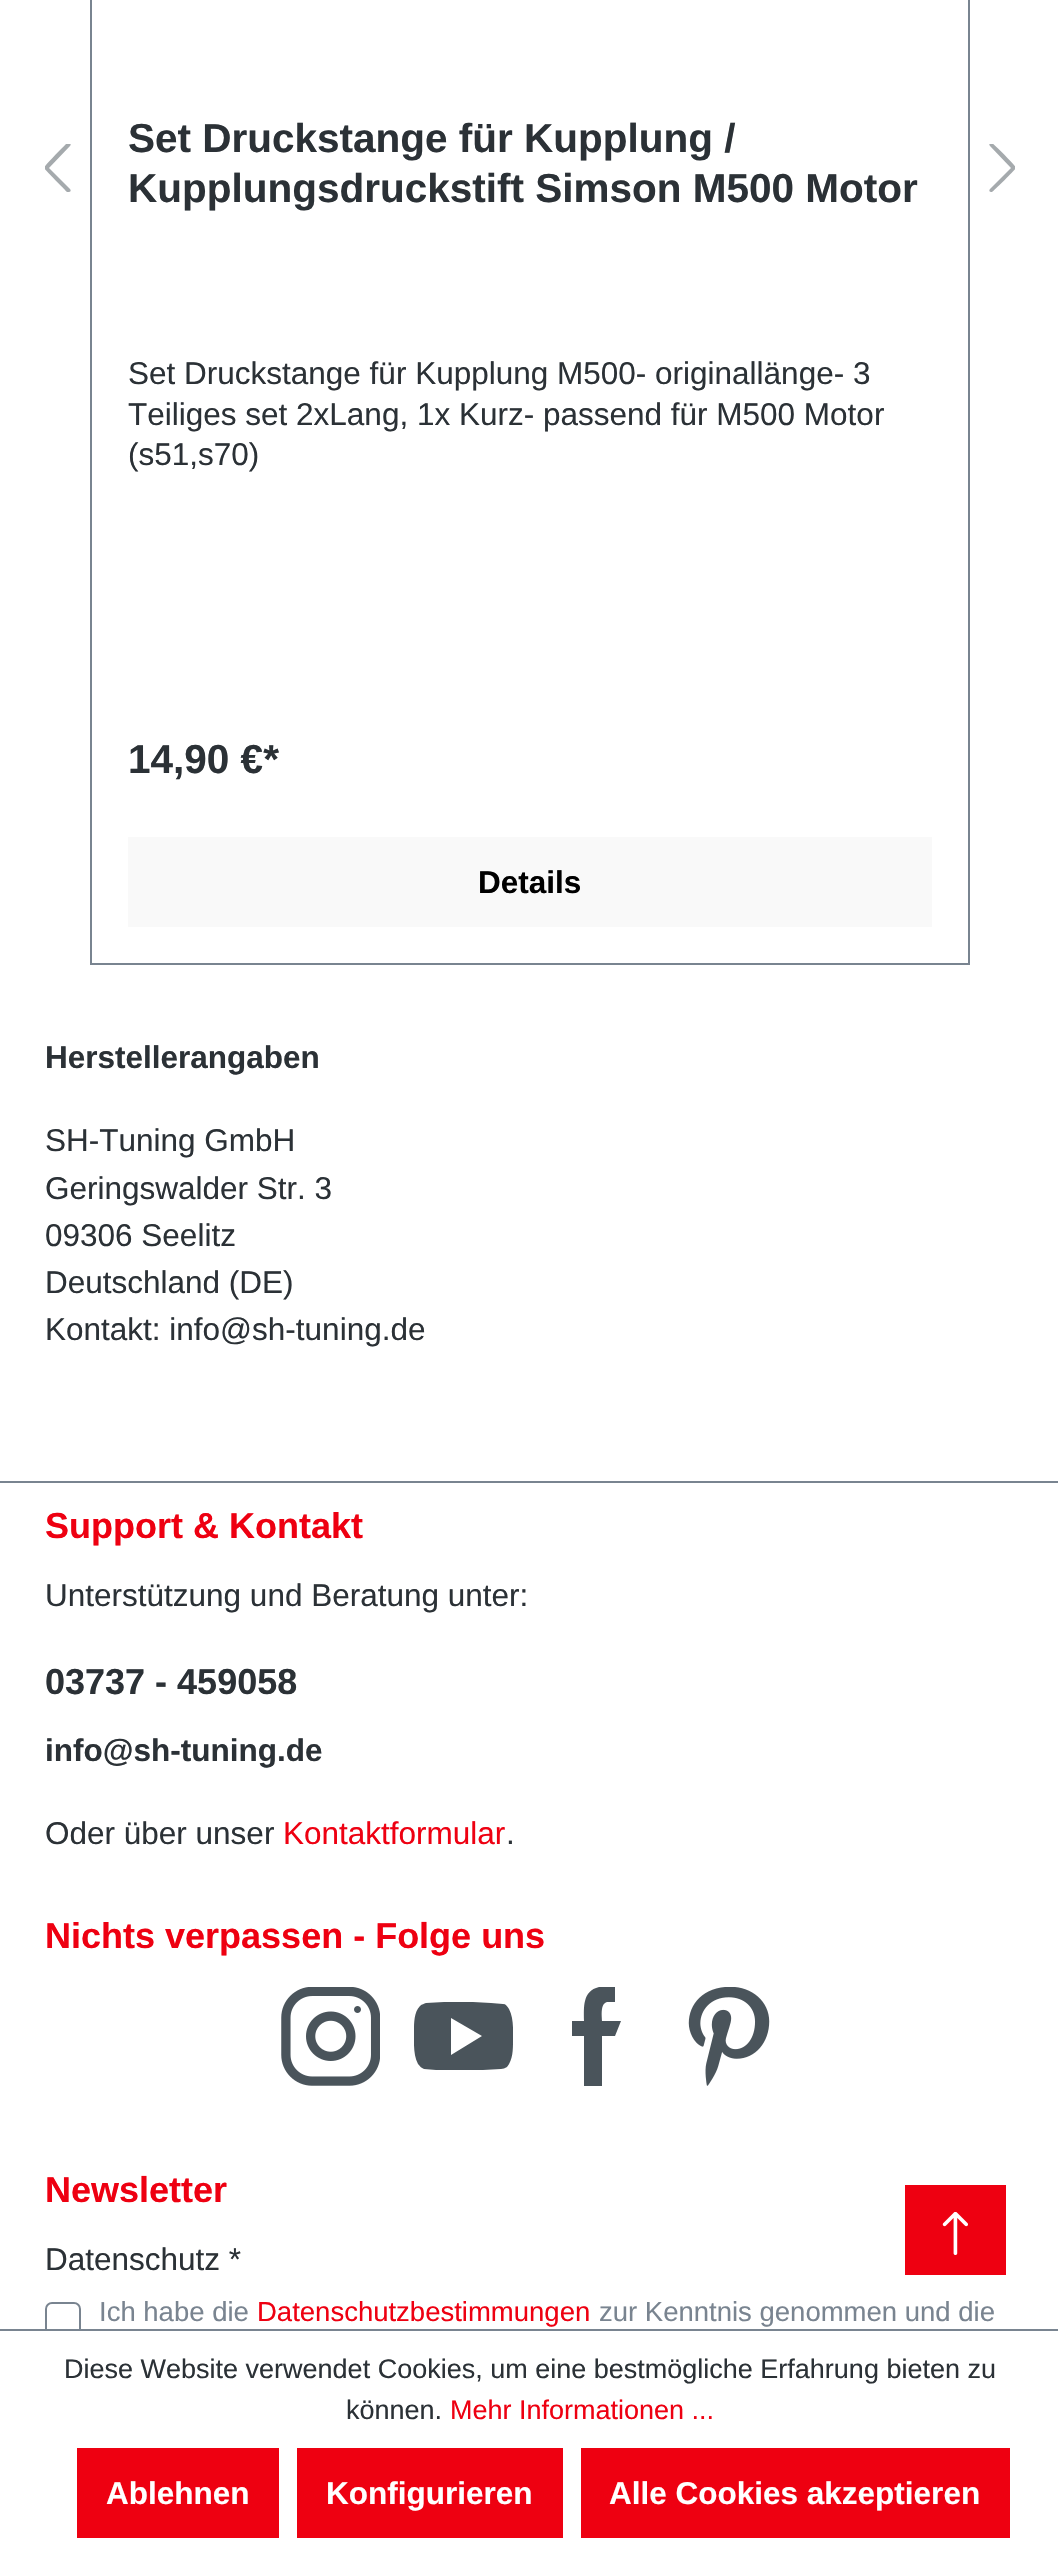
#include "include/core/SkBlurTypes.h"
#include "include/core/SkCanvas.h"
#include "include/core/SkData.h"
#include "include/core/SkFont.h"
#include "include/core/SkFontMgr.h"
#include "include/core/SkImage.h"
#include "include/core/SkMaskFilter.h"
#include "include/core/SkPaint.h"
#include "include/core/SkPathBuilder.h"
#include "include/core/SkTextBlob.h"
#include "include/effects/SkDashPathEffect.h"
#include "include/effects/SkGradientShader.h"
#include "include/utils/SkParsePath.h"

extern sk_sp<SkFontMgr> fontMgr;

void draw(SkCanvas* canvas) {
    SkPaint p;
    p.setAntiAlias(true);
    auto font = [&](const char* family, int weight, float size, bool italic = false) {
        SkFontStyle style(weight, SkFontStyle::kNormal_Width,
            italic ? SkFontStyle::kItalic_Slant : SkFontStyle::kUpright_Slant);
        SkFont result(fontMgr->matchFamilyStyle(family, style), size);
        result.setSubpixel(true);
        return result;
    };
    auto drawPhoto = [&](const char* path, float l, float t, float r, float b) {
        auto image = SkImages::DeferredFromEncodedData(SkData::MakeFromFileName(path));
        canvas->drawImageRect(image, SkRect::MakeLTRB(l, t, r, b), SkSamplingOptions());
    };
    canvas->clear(0xFFFFFFFF);
    p.setStyle(SkPaint::kStroke_Style);
    p.setStrokeWidth(2);
    p.setColor(0xFF798490);
    canvas->drawRect(SkRect::MakeLTRB(91, -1, 969, 964), p);
    auto font1 = font("Liberation Sans", 700, 40.5f);
    p.setStyle(SkPaint::kFill_Style);
    p.setColor(0xFF2B3136);
    canvas->drawString("Set Druckstange für Kupplung /", 128, 152, font1, p);
    canvas->drawString("Kupplungsdruckstift Simson M500 Motor", 128, 202, font1, p);
    auto font2 = font("Liberation Sans", 400, 31.5f);
    {
        const struct { const char* s; float x, y; } items[] = {
            {"Set Druckstange für Kupplung M500- originallänge- 3", 128, 384},
            {"Teiliges set 2xLang, 1x Kurz- passend für M500 Motor", 128, 425},
            {"(s51,s70)", 128, 465},
        };
        for (auto [s, x, y] : items) {
            canvas->drawString(s, x, y, font2, p);
        }
    }
    canvas->drawString("14,90 €*", 128, 773, font1, p);
    p.setColor(0xFFF9F9F9);
    canvas->drawRect(SkRect::MakeLTRB(128, 837, 932, 927), p);
    auto font3 = font("Liberation Sans", 700, 31.5f);
    p.setColor(0xFF000000);
    canvas->drawString("Details", 478, 893, font3, p);
    canvas->save();
    canvas->clipRect(SkRect::MakeLTRB(45, 144, 81, 194));
    p.setColor(0xFFA5AAAD);
    canvas->drawPath(SkPathBuilder(SkPathFillType::kEvenOdd).moveTo(49, 168).lineTo(70, 189).cubicTo(71, 190, 71, 192, 69, 192).lineTo(67, 192).cubicTo(65, 190, 44, 169, 44, 168).cubicTo(44, 166, 65, 145, 67, 143).lineTo(69, 143).cubicTo(71, 143, 71, 145, 70, 146).close().detach(), p);
    canvas->restore();
    canvas->save();
    canvas->clipRect(SkRect::MakeLTRB(979, 144, 1015, 194));
    canvas->drawPath(SkPathBuilder(SkPathFillType::kEvenOdd).moveTo(1011, 168).lineTo(990, 189).cubicTo(989, 190, 989, 192, 991, 192).lineTo(992, 192).cubicTo(995, 190, 1016, 169, 1016, 168).cubicTo(1016, 166, 995, 145, 992, 143).lineTo(991, 143).cubicTo(989, 143, 989, 145, 990, 146).close().detach(), p);
    canvas->restore();
    p.setColor(0xFF2B3136);
    canvas->drawString("Herstellerangaben", 45, 1068, font3, p);
    {
        const struct { const char* s; float x, y; } items[] = {
            {"SH-Tuning GmbH", 45, 1151},
            {"Geringswalder Str. 3", 45, 1199},
            {"09306 Seelitz", 45, 1246},
            {"Deutschland (DE)", 45, 1293},
            {"Kontakt: info@sh-tuning.de", 45, 1340},
        };
        for (auto [s, x, y] : items) {
            canvas->drawString(s, x, y, font2, p);
        }
    }
    p.setColor(0xFF798490);
    canvas->drawRect(SkRect::MakeLTRB(0, 1481, 1058, 1483), p);
    auto font4 = font("Liberation Sans", 700, 36);
    p.setColor(0xFFEE0011);
    canvas->drawString("Support & Kontakt", 45, 1538, font4, p);
    p.setColor(0xFF2B3136);
    canvas->drawString("Unterstützung und Beratung unter:", 45, 1606, font2, p);
    canvas->drawString("03737 - 459058", 45, 1694, font4, p);
    canvas->drawString("info@sh-tuning.de", 45, 1761, font3, p);
    canvas->drawString("Oder über unser", 45, 1844, font2, p);
    p.setColor(0xFFEE0011);
    canvas->drawString("Kontaktformular", 283, 1844, font2, p);
    p.setColor(0xFF2B3136);
    canvas->drawString(".", 506, 1844, font2, p);
    p.setColor(0xFFEE0011);
    canvas->drawString("Nichts verpassen - Folge uns", 45, 1948, font4, p);
    drawPhoto("media/1.png", 281, 1987, 380, 2086);
    canvas->save();
    canvas->clipRect(SkRect::MakeLTRB(414, 1987, 513, 2086));
    p.setColor(0xFF4A545B);
    canvas->drawPath(SkPathBuilder().moveTo(509, 2009).cubicTo(507, 2006, 506, 2004, 503, 2004).lineTo(491, 2003).lineTo(473, 2002).lineTo(444, 2002).lineTo(426, 2003).cubicTo(424, 2004, 422, 2004, 420, 2006).cubicTo(414, 2012, 414, 2023, 414, 2031).cubicTo(414, 2041, 413, 2055, 418, 2064).cubicTo(420, 2066, 421, 2068, 424, 2069).lineTo(436, 2070).lineTo(454, 2070).lineTo(483, 2070).lineTo(501, 2069).cubicTo(503, 2069, 505, 2068, 507, 2067).cubicTo(513, 2060, 513, 2049, 513, 2041).cubicTo(513, 2032, 514, 2018, 509, 2009).close().moveTo(451, 2055).lineTo(451, 2018).lineTo(482, 2036).close().detach(), p);
    canvas->restore();
    canvas->drawPath(SkPathBuilder().moveTo(602, 2021).cubicTo(602, 2016, 600, 2004, 607, 2002).lineTo(615, 2002).lineTo(615, 1987).lineTo(599, 1987).cubicTo(582, 1991, 584, 2008, 584, 2021).lineTo(572, 2021).lineTo(572, 2036).lineTo(584, 2036).lineTo(584, 2086).lineTo(602, 2086).lineTo(602, 2036).lineTo(615, 2036).lineTo(621, 2021).close().detach(), p);
    drawPhoto("media/2.png", 688, 1987, 770, 2086);
    p.setColor(0xFFEE0011);
    canvas->drawString("Newsletter", 45, 2202, font4, p);
    p.setColor(0xFF2B3136);
    canvas->drawString("Datenschutz *", 45, 2270, font2, p);
    p.setStyle(SkPaint::kStroke_Style);
    p.setColor(0xFF798490);
    canvas->drawRoundRect(SkRect::MakeLTRB(46, 2303, 80, 2337), 6, 6, p);
    auto font5 = font("Liberation Sans", 400, 27.5f);
    p.setStyle(SkPaint::kFill_Style);
    canvas->drawString("Ich habe die", 99, 2321, font5, p);
    p.setColor(0xFFEE0011);
    canvas->drawString("Datenschutzbestimmungen", 257, 2321, font5, p);
    p.setColor(0xFF798490);
    canvas->drawString("zur Kenntnis genommen und die", 599, 2321, font5, p);
    p.setColor(0xFFEE0011);
    canvas->drawRect(SkRect::MakeLTRB(905, 2185, 1006, 2275), p);
    drawPhoto("media/3.png", 942, 2212, 968, 2255);
    p.setColor(0xFFFFFFFF);
    canvas->drawRect(SkRect::MakeLTRB(45, 2331, 81, 2338), p);
    p.setColor(0xFF798490);
    canvas->drawRect(SkRect::MakeLTRB(0, 2329, 1058, 2331), p);
    auto font6 = font("Liberation Sans", 400, 27);
    p.setColor(0xFF2B3136);
    canvas->drawString("Diese Website verwendet Cookies, um eine bestmögliche Erfahrung bieten zu", 64, 2378, font6, p);
    canvas->drawString("können.", 346, 2419, font6, p);
    p.setColor(0xFFEE0011);
    canvas->drawString("Mehr Informationen ...", 450, 2419, font6, p);
    canvas->drawRect(SkRect::MakeLTRB(77, 2448, 279, 2538), p);
    p.setColor(0xFFFFFFFF);
    canvas->drawString("Ablehnen", 106, 2504, font3, p);
    p.setColor(0xFFEE0011);
    canvas->drawRect(SkRect::MakeLTRB(297, 2448, 563, 2538), p);
    p.setColor(0xFFFFFFFF);
    canvas->drawString("Konfigurieren", 326, 2504, font3, p);
    p.setColor(0xFFEE0011);
    canvas->drawRect(SkRect::MakeLTRB(581, 2448, 1010, 2538), p);
    p.setColor(0xFFFFFFFF);
    canvas->drawString("Alle Cookies akzeptieren", 609, 2504, font3, p);
}
